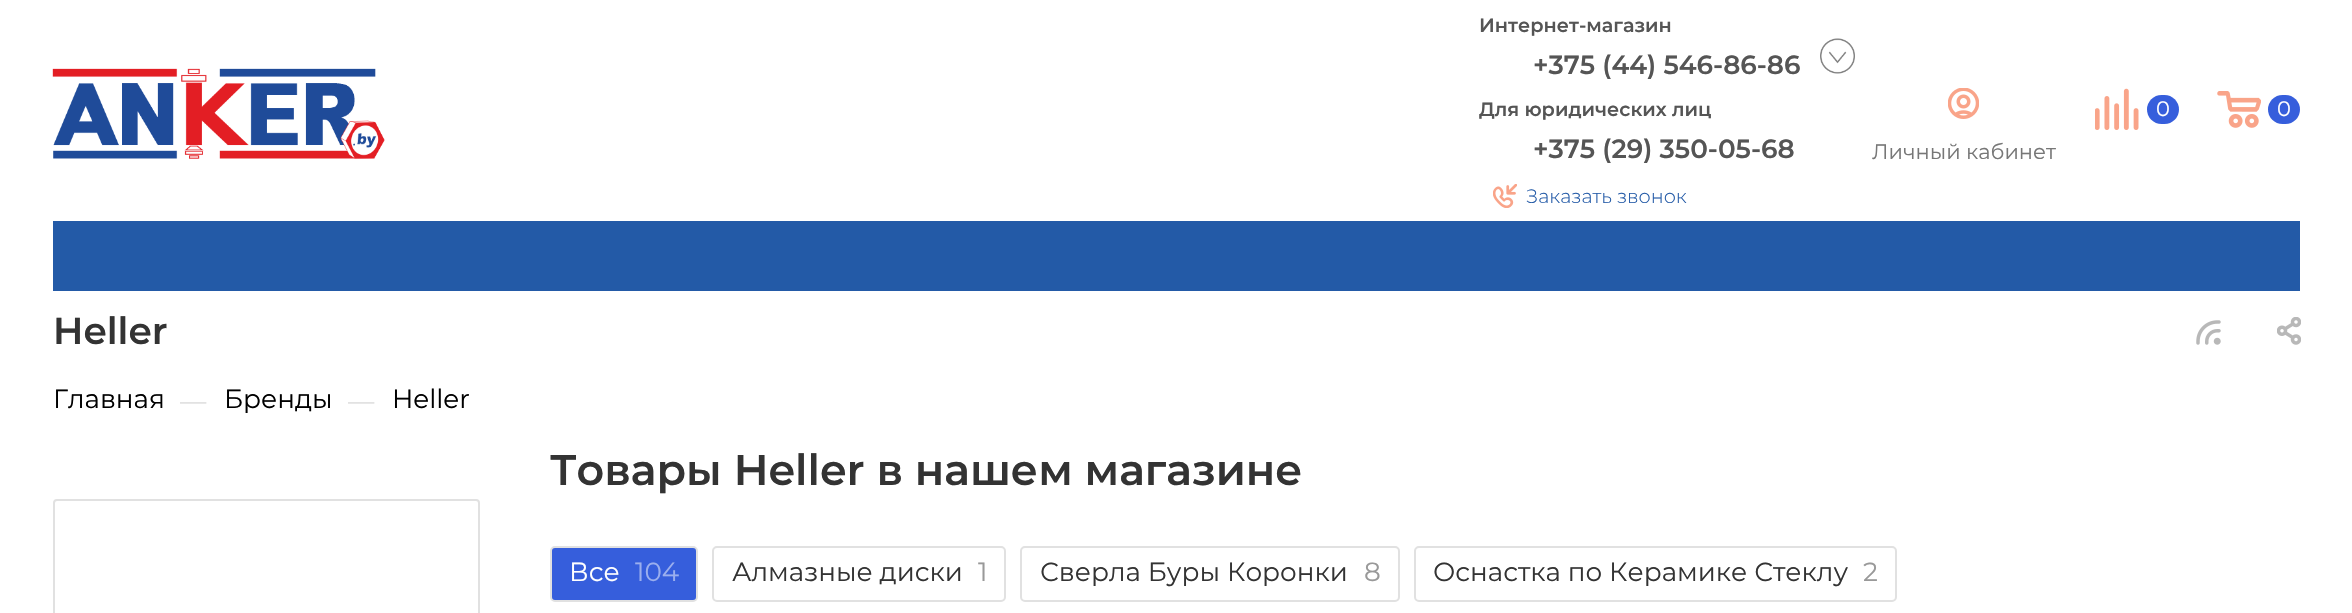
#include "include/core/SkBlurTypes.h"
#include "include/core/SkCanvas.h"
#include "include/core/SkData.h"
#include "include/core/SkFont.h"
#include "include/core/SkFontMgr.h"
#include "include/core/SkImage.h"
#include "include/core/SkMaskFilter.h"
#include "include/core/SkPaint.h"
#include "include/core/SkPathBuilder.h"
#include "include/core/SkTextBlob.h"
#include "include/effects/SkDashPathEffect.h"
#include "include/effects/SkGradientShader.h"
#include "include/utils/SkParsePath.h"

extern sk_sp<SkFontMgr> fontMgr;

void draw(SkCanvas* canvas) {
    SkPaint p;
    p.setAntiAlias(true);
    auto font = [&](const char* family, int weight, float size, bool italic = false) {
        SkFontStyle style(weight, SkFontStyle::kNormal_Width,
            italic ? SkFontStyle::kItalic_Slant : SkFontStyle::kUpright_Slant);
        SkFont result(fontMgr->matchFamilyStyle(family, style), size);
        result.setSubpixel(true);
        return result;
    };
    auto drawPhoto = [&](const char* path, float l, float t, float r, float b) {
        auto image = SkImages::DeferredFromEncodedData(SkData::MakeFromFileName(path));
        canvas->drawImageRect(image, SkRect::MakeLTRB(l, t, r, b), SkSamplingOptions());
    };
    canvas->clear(0xFFFFFFFF);
    drawPhoto("media/1.png", 52, 68, 385, 159);
    auto font1 = font("Montserrat", 600, 19.25f);
    p.setColor(0xFF555555);
    canvas->drawString("Интернет-магазин", 1479, 32, font1, p);
    auto font2 = font("Montserrat", 600, 26.25f);
    canvas->drawString("+375 (44) 546-86-86", 1533, 74, font2, p);
    drawPhoto("media/2.png", 1820, 38, 1855, 74);
    canvas->drawString("Для юридических лиц", 1479, 116, font1, p);
    canvas->drawString("+375 (29) 350-05-68", 1533, 158, font2, p);
    drawPhoto("media/3.png", 1493, 184, 1517, 208);
    auto font3 = font("Montserrat", 300, 19.25f);
    p.setColor(0xFF235AA7);
    canvas->drawString("Заказать звонок", 1526, 203, font3, p);
    drawPhoto("media/4.png", 2095, 88, 2139, 130);
    p.setColor(0xFF365EDC);
    canvas->drawRoundRect(SkRect::MakeLTRB(2147, 95, 2179, 124), 14.5f, 14.5f, p);
    auto font4 = font("Montserrat", 400, 21);
    p.setColor(0xFFFFFFFF);
    canvas->drawString("0", 2156, 116, font4, p);
    drawPhoto("media/5.png", 2217, 91, 2261, 128);
    p.setColor(0xFF365EDC);
    canvas->drawRoundRect(SkRect::MakeLTRB(2268, 95, 2300, 124), 14.5f, 14.5f, p);
    p.setColor(0xFFFFFFFF);
    canvas->drawString("0", 2277, 116, font4, p);
    drawPhoto("media/6.png", 1948, 88, 1979, 119);
    p.setColor(0xFF777777);
    canvas->drawString("Личный кабинет", 1872, 159, font4, p);
    p.setColor(0xFF235AA7);
    canvas->drawRect(SkRect::MakeLTRB(53, 221, 2300, 291), p);
    auto font5 = font("Montserrat", 600, 37.5f);
    p.setColor(0xFF333333);
    canvas->drawString("Heller", 53, 344, font5, p);
    drawPhoto("media/7.png", 2196, 320, 2221, 345);
    drawPhoto("media/8.png", 2277, 317, 2301, 345);
    auto font6 = font("Montserrat", 400, 26.25f);
    p.setColor(0xFF000000);
    canvas->drawString("Главная", 53, 408, font6, p);
    p.setColor(0xFFDDDDDD);
    canvas->drawString("—", 180, 410, font6, p);
    p.setColor(0xFF000000);
    canvas->drawString("Бренды", 224, 408, font6, p);
    p.setColor(0xFFDDDDDD);
    canvas->drawString("—", 348, 410, font6, p);
    p.setColor(0xFF000000);
    canvas->drawString("Heller", 392, 408, font6, p);
    p.setStyle(SkPaint::kStroke_Style);
    p.setStrokeWidth(2);
    p.setColor(0xFFE1E1E1);
    canvas->drawRoundRect(SkRect::MakeLTRB(54, 500, 479, 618), 3, 3, p);
    auto font7 = font("Montserrat", 600, 42.9f);
    p.setStyle(SkPaint::kFill_Style);
    p.setColor(0xFF333333);
    canvas->drawString("Товары Heller в нашем магазине", 550, 485, font7, p);
    p.setColor(0xFF365EDC);
    canvas->drawRoundRect(SkRect::MakeLTRB(551, 547, 697, 601), 4, 4, p);
    p.setStyle(SkPaint::kStroke_Style);
    p.setColor(0xFFE1E1E1);
    canvas->drawRoundRect(SkRect::MakeLTRB(551, 547, 697, 601), 4, 4, p);
    p.setStyle(SkPaint::kFill_Style);
    p.setColor(0xFFFFFFFF);
    canvas->drawString("Все", 569, 581, font6, p);
    p.setColor(0xFF9BAFEE);
    canvas->drawString("104", 635, 581, font6, p);
    p.setStyle(SkPaint::kStroke_Style);
    p.setColor(0xFFE1E1E1);
    canvas->drawRoundRect(SkRect::MakeLTRB(713, 547, 1005, 601), 4, 4, p);
    p.setStyle(SkPaint::kFill_Style);
    p.setColor(0xFF333333);
    canvas->drawString("Алмазные диски", 732, 581, font6, p);
    p.setColor(0xFF999999);
    canvas->drawString("1", 978, 581, font6, p);
    p.setStyle(SkPaint::kStroke_Style);
    p.setColor(0xFFE1E1E1);
    canvas->drawRoundRect(SkRect::MakeLTRB(1021, 547, 1399, 601), 4, 4, p);
    p.setStyle(SkPaint::kFill_Style);
    p.setColor(0xFF333333);
    canvas->drawString("Сверла Буры Коронки", 1040, 581, font6, p);
    p.setColor(0xFF999999);
    canvas->drawString("8", 1364, 581, font6, p);
    p.setStyle(SkPaint::kStroke_Style);
    p.setColor(0xFFE1E1E1);
    canvas->drawRoundRect(SkRect::MakeLTRB(1415, 547, 1896, 601), 4, 4, p);
    p.setStyle(SkPaint::kFill_Style);
    p.setColor(0xFF333333);
    canvas->drawString("Оснастка по Керамике Стеклу", 1433, 581, font6, p);
    p.setColor(0xFF999999);
    canvas->drawString("2", 1863, 581, font6, p);
}
